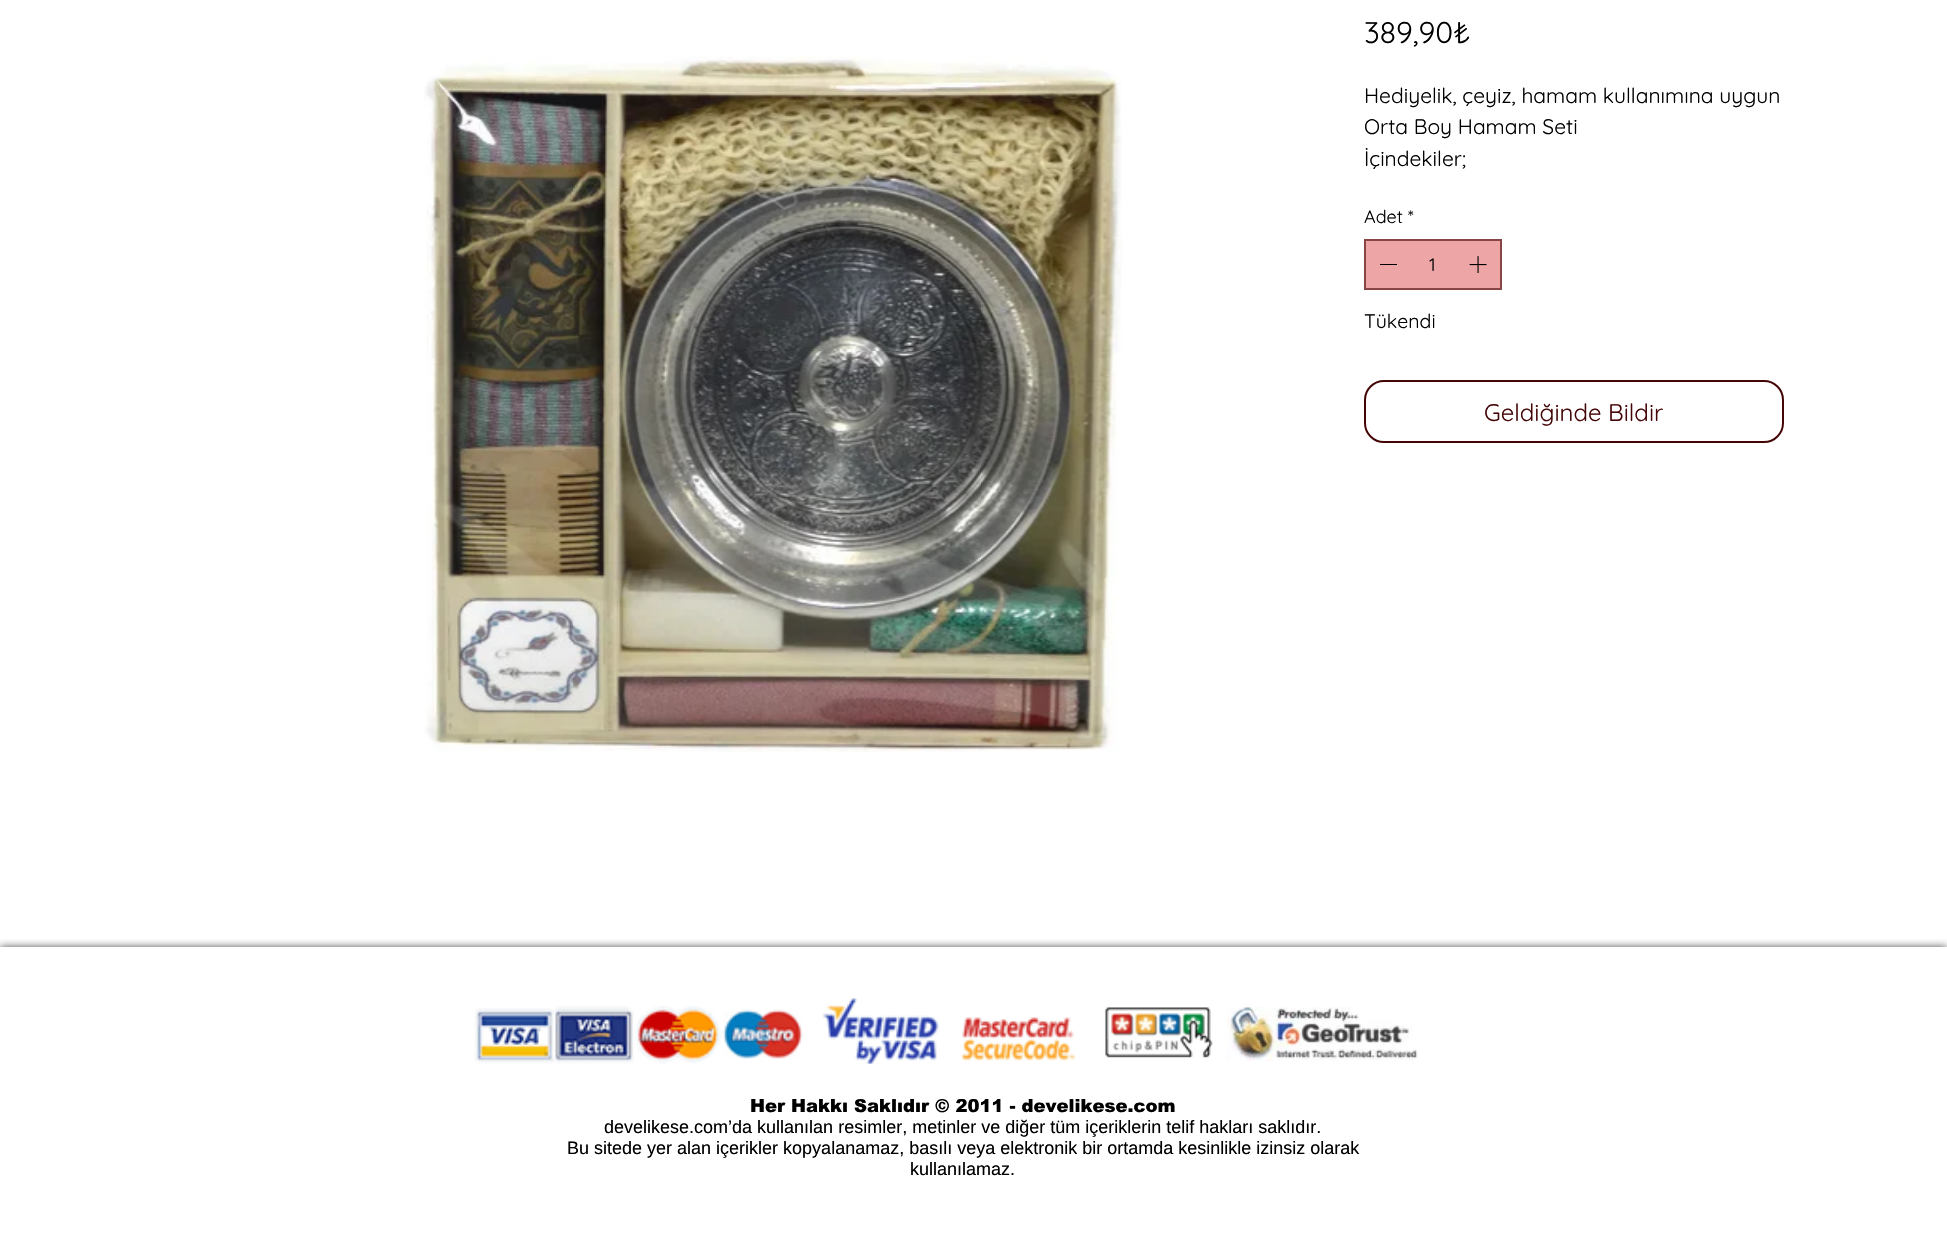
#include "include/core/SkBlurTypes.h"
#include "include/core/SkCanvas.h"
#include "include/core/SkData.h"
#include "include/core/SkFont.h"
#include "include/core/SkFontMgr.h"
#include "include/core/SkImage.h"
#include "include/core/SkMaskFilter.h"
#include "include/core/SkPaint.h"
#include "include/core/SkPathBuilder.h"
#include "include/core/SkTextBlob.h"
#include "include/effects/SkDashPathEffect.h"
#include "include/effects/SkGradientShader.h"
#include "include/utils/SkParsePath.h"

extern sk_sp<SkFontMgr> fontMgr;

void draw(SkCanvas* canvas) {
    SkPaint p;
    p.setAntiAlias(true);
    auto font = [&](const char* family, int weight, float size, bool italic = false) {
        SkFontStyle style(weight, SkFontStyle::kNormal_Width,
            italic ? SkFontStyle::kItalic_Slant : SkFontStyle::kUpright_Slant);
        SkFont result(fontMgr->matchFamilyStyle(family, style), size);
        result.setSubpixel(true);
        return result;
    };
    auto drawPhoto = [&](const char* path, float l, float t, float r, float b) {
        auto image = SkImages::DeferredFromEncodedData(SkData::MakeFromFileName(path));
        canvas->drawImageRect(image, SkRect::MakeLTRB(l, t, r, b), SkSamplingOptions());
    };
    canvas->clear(0xFFFFFFFF);
    drawPhoto("media/1.png", 424, 56, 1122, 752);
    auto font1 = font("Quicksand", 400, 30);
    p.setColor(0xFF000000);
    canvas->drawString("389,90₺", 1364, 43, font1, p);
    auto font2 = font("Quicksand", 400, 21);
    {
        const struct { const char* s; float x, y; } items[] = {
            {"Hediyelik, çeyiz, hamam kullanımına uygun", 1364, 103},
            {"Orta Boy Hamam Seti", 1364, 134},
            {"İçindekiler;", 1364, 166},
        };
        for (auto [s, x, y] : items) {
            canvas->drawString(s, x, y, font2, p);
        }
    }
    auto font3 = font("Quicksand", 400, 18);
    canvas->drawString("Adet", 1364, 223, font3, p);
    canvas->drawString("*", 1408, 223, font3, p);
    p.setColor(0xFFEDA5A6);
    canvas->drawRect(SkRect::MakeLTRB(1365, 240, 1501, 289), p);
    p.setStyle(SkPaint::kStroke_Style);
    p.setStrokeWidth(2);
    p.setColor(0xFF884546);
    canvas->drawRect(SkRect::MakeLTRB(1365, 240, 1501, 289), p);
    p.setStyle(SkPaint::kFill_Style);
    p.setColor(0xFF000000);
    canvas->drawRect(SkRect::MakeLTRB(1380, 264, 1397, 265), p);
    canvas->drawString("1", 1429, 271, font3, p);
    drawPhoto("media/2.png", 1469, 256, 1487, 273);
    auto font4 = font("Quicksand", 400, 19.5f);
    canvas->drawString("Tükendi", 1364, 328, font4, p);
    p.setStyle(SkPaint::kStroke_Style);
    p.setColor(0xFF440506);
    canvas->drawRoundRect(SkRect::MakeLTRB(1365, 381, 1783, 442), 19, 19, p);
    auto font5 = font("Quicksand", 400, 24);
    p.setStyle(SkPaint::kFill_Style);
    canvas->drawString("Geldiğinde Bildir", 1484, 421, font5, p);
    canvas->save();
    canvas->clipRect(SkRect::MakeLTRB(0, 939, 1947, 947));
    p.setColor(0xB3000000);
    p.setMaskFilter(SkMaskFilter::MakeBlur(kNormal_SkBlurStyle, 4));
    canvas->drawRect(SkRect::MakeLTRB(0, 947, 1947, 1236), p);
    p.setMaskFilter(nullptr);
    canvas->restore();
    drawPhoto("media/3.png", 474, 998, 1076, 1064);
    drawPhoto("media/4.png", 1105, 1007, 1213, 1058);
    drawPhoto("media/5.png", 1227, 1007, 1418, 1061);
    auto font6 = font("arial", 900, 18);
    p.setColor(0xFF000000);
    canvas->drawString("Her Hakkı Saklıdır © 2011 - develikese.com", 750, 1112, font6, p);
    auto font7 = font("Liberation Sans", 400, 18);
    {
        const struct { const char* s; float x, y; } items[] = {
            {"develikese.com’da kullanılan resimler, metinler ve diğer tüm içeriklerin telif hakları saklıdır.", 604, 1133},
            {"Bu sitede yer alan içerikler kopyalanamaz, basılı veya elektronik bir ortamda kesinlikle izinsiz olarak", 567, 1154},
            {"kullanılamaz.", 910, 1175},
        };
        for (auto [s, x, y] : items) {
            canvas->drawString(s, x, y, font7, p);
        }
    }
}
